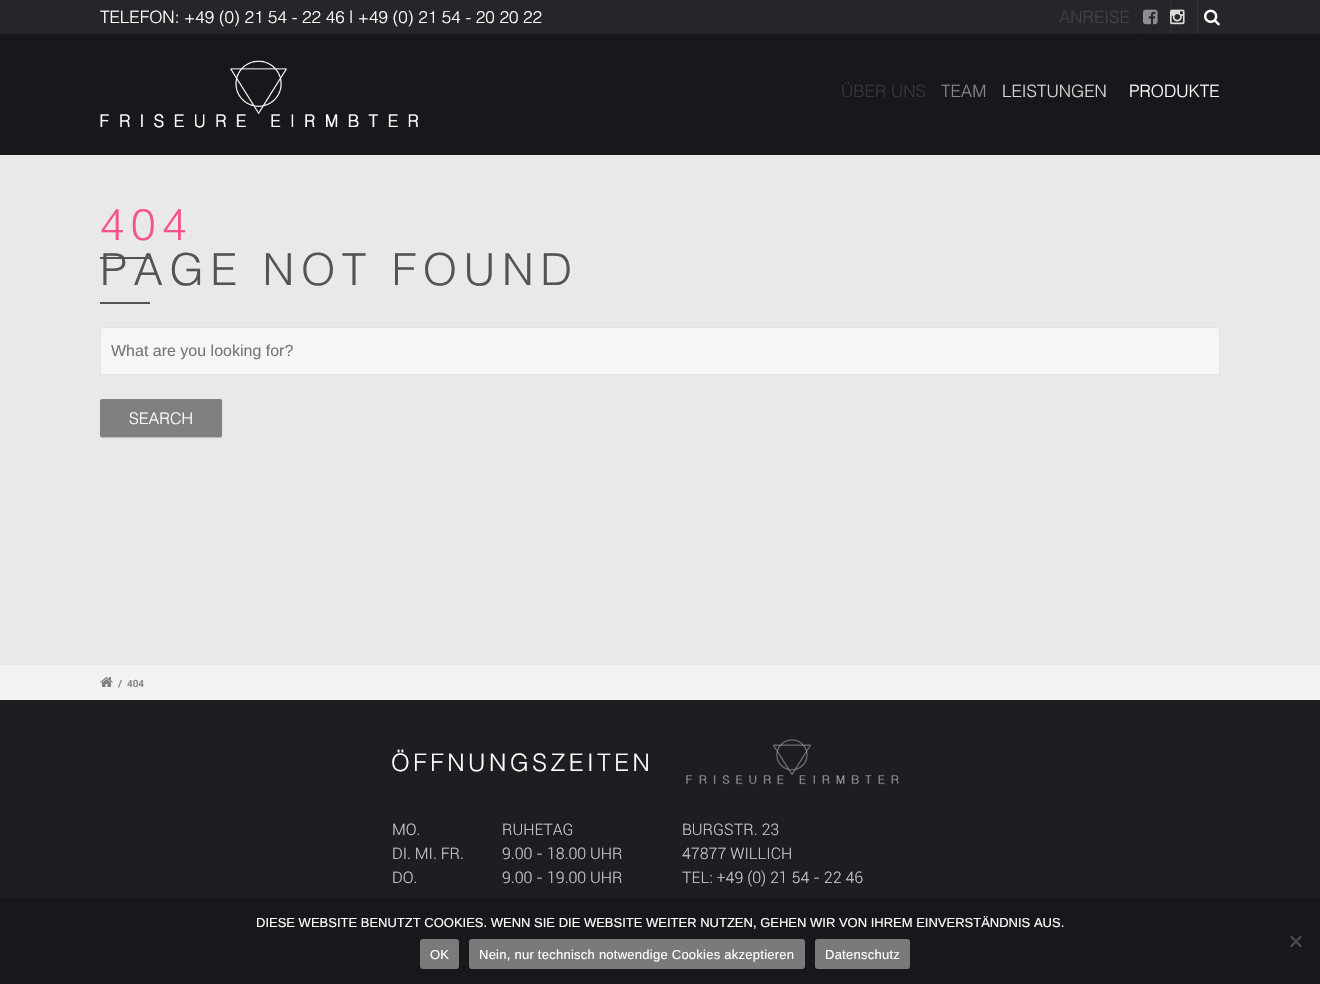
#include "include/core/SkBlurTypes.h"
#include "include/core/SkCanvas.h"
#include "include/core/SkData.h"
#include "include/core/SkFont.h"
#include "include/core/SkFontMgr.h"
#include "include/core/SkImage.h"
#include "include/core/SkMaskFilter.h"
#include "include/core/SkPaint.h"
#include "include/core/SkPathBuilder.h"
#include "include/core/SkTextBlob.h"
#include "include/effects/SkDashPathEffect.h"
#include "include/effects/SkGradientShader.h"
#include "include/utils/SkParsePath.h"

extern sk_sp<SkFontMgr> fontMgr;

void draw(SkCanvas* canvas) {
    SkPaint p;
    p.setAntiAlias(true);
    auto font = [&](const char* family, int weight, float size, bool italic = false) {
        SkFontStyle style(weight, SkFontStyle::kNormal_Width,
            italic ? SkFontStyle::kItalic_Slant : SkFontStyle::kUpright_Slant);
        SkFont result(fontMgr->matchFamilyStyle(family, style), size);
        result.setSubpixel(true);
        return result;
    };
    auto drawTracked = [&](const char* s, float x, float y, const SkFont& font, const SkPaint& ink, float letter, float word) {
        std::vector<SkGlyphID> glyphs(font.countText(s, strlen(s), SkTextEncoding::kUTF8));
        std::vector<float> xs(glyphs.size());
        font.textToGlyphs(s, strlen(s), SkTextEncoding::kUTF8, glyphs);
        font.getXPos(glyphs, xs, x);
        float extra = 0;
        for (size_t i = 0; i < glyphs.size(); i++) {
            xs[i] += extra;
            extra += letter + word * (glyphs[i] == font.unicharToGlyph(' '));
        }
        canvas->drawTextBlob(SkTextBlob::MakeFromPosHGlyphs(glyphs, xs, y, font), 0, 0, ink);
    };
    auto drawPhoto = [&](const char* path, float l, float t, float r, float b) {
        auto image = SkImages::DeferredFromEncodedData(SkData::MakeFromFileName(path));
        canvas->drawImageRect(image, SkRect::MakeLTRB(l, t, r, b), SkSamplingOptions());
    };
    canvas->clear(0xFFE9E9E9);
    p.setColor(0xFF25262A);
    canvas->drawRect(SkRect::MakeLTRB(0, 0, 1320, 34), p);
    auto font1 = font("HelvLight", 300, 17);
    p.setColor(0xFFFFFFFF);
    canvas->drawString("TELEFON: +49 (0) 21 54 - 22 46 | +49 (0) 21 54 - 20 20 22", 100, 23, font1, p);
    p.setColor(0xFF28292D);
    canvas->drawRect(SkRect::MakeLTRB(1143, 0, 1144, 34), p);
    p.setColor(0xFF434347);
    canvas->drawString("ANREISE", 1059, 23, font1, p);
    p.setColor(0xFF303134);
    canvas->drawRect(SkRect::MakeLTRB(1170, 0, 1171, 34), p);
    drawPhoto("media/1.png", 1143, 9, 1158, 25);
    p.setColor(0xFF37383C);
    canvas->drawRect(SkRect::MakeLTRB(1197, 0, 1198, 34), p);
    drawPhoto("media/2.png", 1170, 9, 1185, 25);
    drawPhoto("media/3.png", 1204, 9, 1220, 26);
    p.setColor(0xFF17181B);
    canvas->drawRect(SkRect::MakeLTRB(0, 34, 1320, 155), p);
    drawPhoto("media/4.png", 100, 60, 418, 128);
    p.setColor(0xFF36373A);
    canvas->drawString("ÜBER UNS", 841, 97, font1, p);
    p.setColor(0xFF878889);
    canvas->drawString("TEAM", 941, 97, font1, p);
    p.setColor(0xFFD9D9DA);
    canvas->drawString("LEISTUNGEN", 1002, 97, font1, p);
    p.setColor(0xFFFFFFFF);
    canvas->drawString("PRODUKTE", 1129, 97, font1, p);
    auto font2 = font("HelvLight", 300, 44);
    p.setColor(0xFFF65486);
    drawTracked("404", 100, 240, font2, p, 6.6f, 0);
    p.setColor(0xFF545454);
    canvas->drawRect(SkRect::MakeLTRB(100, 257, 150, 259), p);
    drawTracked("PAGE NOT FOUND", 100, 285, font2, p, 6.6f, 0);
    canvas->drawRect(SkRect::MakeLTRB(100, 302, 150, 304), p);
    p.setColor(0xFFF6F6F6);
    canvas->drawRoundRect(SkRect::MakeLTRB(100.5f, 327.5f, 1219.5f, 374.5f), 1.5f, 1.5f, p);
    p.setStyle(SkPaint::kStroke_Style);
    p.setStrokeWidth(1);
    p.setColor(0xFFE3E3E3);
    canvas->drawRoundRect(SkRect::MakeLTRB(100.5f, 327.5f, 1219.5f, 374.5f), 1.5f, 1.5f, p);
    auto font3 = font("Liberation Sans", 400, 16);
    p.setStyle(SkPaint::kFill_Style);
    p.setColor(0xFF757575);
    canvas->drawString("What are you looking for?", 111, 356, font3, p);
    p.setColor(0x33000000);
    p.setMaskFilter(SkMaskFilter::MakeBlur(kNormal_SkBlurStyle, 0.5f));
    canvas->drawRoundRect(SkRect::MakeLTRB(100, 400, 222, 438), 2, 2, p);
    p.setMaskFilter(nullptr);
    p.setColor(0xFF7F8082);
    canvas->drawRoundRect(SkRect::MakeLTRB(100, 399, 222, 437), 2, 2, p);
    auto font4 = font("HelvLight", 300, 16);
    p.setColor(0xFFFFFFFF);
    canvas->drawString("SEARCH", 129, 424, font4, p);
    p.setColor(0xFFF2F2F2);
    canvas->drawRect(SkRect::MakeLTRB(0, 665, 1320, 700), p);
    drawPhoto("media/5.png", 100, 677, 113, 687);
    auto font5 = font("Roboto", 500, 10);
    p.setColor(0xFF7F8082);
    canvas->drawString("/", 118, 687, font5, p);
    canvas->drawString("404", 127, 687, font5, p);
    p.setColor(0xFF1E1E22);
    canvas->drawRect(SkRect::MakeLTRB(0, 700, 1320, 898), p);
    auto font6 = font("HelvLight", 300, 24);
    p.setColor(0xFFFFFFFF);
    drawTracked("ÖFFNUNGSZEITEN", 391, 771, font6, p, 3.6f, 0);
    auto font7 = font("Roboto", 300, 16);
    p.setColor(0xFFCACDCF);
    {
        const struct { const char* s; float x, y; } items[] = {
            {"MO.", 392, 835},
            {"RUHETAG", 502, 835},
            {"DI. MI. FR.", 392, 859},
            {"9.00 - 18.00 UHR", 502, 859},
            {"DO.", 392, 883},
            {"9.00 - 19.00 UHR", 502, 883},
        };
        for (auto [s, x, y] : items) {
            canvas->drawString(s, x, y, font7, p);
        }
    }
    drawPhoto("media/6.png", 686, 739, 899, 785);
    {
        const struct { const char* s; float x, y; } items[] = {
            {"BURGSTR. 23", 682, 835},
            {"47877 WILLICH", 682, 859},
            {"TEL: +49 (0) 21 54 - 22 46", 682, 883},
        };
        for (auto [s, x, y] : items) {
            canvas->drawString(s, x, y, font7, p);
        }
    }
    p.setColor(0xFF17181B);
    canvas->drawRect(SkRect::MakeLTRB(0, 898, 1320, 984), p);
    auto font8 = font("Liberation Sans", 400, 13);
    p.setColor(0xFFFFFFFF);
    canvas->drawString("DIESE WEBSITE BENUTZT COOKIES. WENN SIE DIE WEBSITE WEITER NUTZEN, GEHEN WIR VON IHREM EINVERSTÄNDNIS AUS.", 256, 927, font8, p);
    p.setColor(0xFF4C4C4E);
    canvas->drawPath(SkPathBuilder().moveTo(1300.5f, 935.5f).lineTo(1302, 937).lineTo(1291.5f, 947.5f).lineTo(1290, 946).close().detach(), p);
    canvas->drawPath(SkPathBuilder().moveTo(1290, 937).lineTo(1291.5f, 935.5f).lineTo(1302, 946).lineTo(1300.5f, 947.5f).close().detach(), p);
    p.setColor(0xFF7A7A7A);
    canvas->drawRoundRect(SkRect::MakeLTRB(420, 939, 459, 969), 3, 3, p);
    p.setColor(0xFFFFFFFF);
    drawTracked("OK", 430, 959, font8, p, 0.25f, 0);
    p.setColor(0xFF7A7A7A);
    canvas->drawRoundRect(SkRect::MakeLTRB(469, 939, 805, 969), 3, 3, p);
    p.setColor(0xFFFFFFFF);
    drawTracked("Nein, nur technisch notwendige Cookies akzeptieren", 479, 959, font8, p, 0.25f, 0);
    p.setColor(0xFF7A7A7A);
    canvas->drawRoundRect(SkRect::MakeLTRB(815, 939, 910, 969), 3, 3, p);
    p.setColor(0xFFFFFFFF);
    drawTracked("Datenschutz", 825, 959, font8, p, 0.25f, 0);
}
